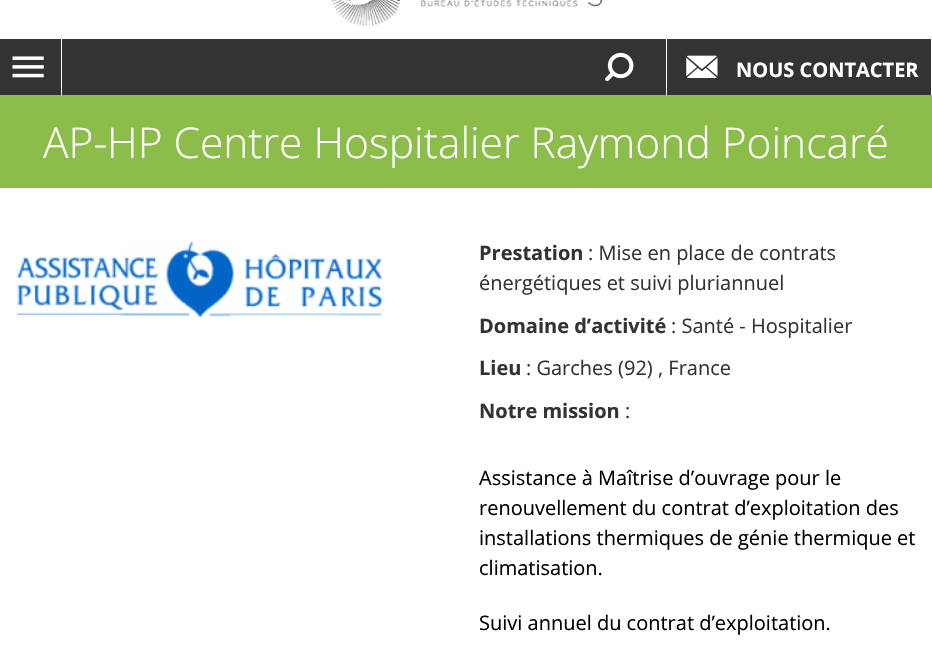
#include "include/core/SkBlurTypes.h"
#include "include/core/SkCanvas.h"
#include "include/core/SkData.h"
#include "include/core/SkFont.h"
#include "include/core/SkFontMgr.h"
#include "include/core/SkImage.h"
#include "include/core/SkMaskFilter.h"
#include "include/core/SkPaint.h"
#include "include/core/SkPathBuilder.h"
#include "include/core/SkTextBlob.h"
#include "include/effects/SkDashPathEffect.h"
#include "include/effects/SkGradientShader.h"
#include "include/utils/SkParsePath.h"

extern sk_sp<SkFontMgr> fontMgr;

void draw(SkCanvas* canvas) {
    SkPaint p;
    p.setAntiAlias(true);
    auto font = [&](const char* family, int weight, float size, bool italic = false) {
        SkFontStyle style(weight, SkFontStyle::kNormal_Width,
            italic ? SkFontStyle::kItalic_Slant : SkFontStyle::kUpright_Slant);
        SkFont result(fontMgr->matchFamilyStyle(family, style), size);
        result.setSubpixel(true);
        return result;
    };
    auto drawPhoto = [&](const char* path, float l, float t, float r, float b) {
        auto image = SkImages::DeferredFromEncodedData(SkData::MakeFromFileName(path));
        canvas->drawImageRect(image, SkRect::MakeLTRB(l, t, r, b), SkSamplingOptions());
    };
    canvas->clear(0xFFFFFFFF);
    drawPhoto("media/1.png", 330, 0, 603, 26);
    p.setColor(0xFF333333);
    canvas->drawRect(SkRect::MakeLTRB(0, 39, 931, 95), p);
    p.setColor(0xFFFFFFFF);
    canvas->drawRect(SkRect::MakeLTRB(61, 39, 62, 95), p);
    drawPhoto("media/2.png", 12, 56, 44, 78);
    canvas->drawRect(SkRect::MakeLTRB(666, 39, 667, 95), p);
    drawPhoto("media/3.png", 605, 52, 634, 82);
    drawPhoto("media/4.png", 686, 55, 718, 78);
    auto font1 = font("Open Sans", 700, 20);
    canvas->drawString("NOUS CONTACTER", 736, 77, font1, p);
    p.setColor(0xFF8CBC49);
    canvas->drawRect(SkRect::MakeLTRB(0, 95, 932, 188), p);
    auto font2 = font("Open Sans", 300, 42.5f);
    p.setColor(0xFFFFFFFF);
    canvas->drawString("AP-HP Centre Hospitalier Raymond Poincaré", 43, 158, font2, p);
    drawPhoto("media/5.png", 16, 241, 383, 318);
    p.setColor(0xFF333333);
    canvas->drawString("Prestation", 479, 260, font1, p);
    auto font3 = font("Open Sans", 400, 20);
    canvas->drawString(": Mise en place de contrats", 588, 260, font3, p);
    canvas->drawString("énergétiques et suivi pluriannuel", 479, 290, font3, p);
    canvas->drawString("Domaine d’activité", 479, 333, font1, p);
    canvas->drawString(": Santé - Hospitalier", 671, 333, font3, p);
    canvas->drawString("Lieu", 479, 375, font1, p);
    canvas->drawString(": Garches (92) , France", 526, 375, font3, p);
    canvas->drawString("Notre mission", 479, 418, font1, p);
    canvas->drawString(":", 625, 418, font3, p);
    p.setColor(0xFF000000);
    {
        const struct { const char* s; float x, y; } items[] = {
            {"Assistance à Maîtrise d’ouvrage pour le", 479, 485},
            {"renouvellement du contrat d’exploitation des", 479, 515},
            {"installations thermiques de génie thermique et", 479, 545},
            {"climatisation.", 479, 575},
            {"Suivi annuel du contrat d’exploitation.", 479, 630},
        };
        for (auto [s, x, y] : items) {
            canvas->drawString(s, x, y, font3, p);
        }
    }
}
